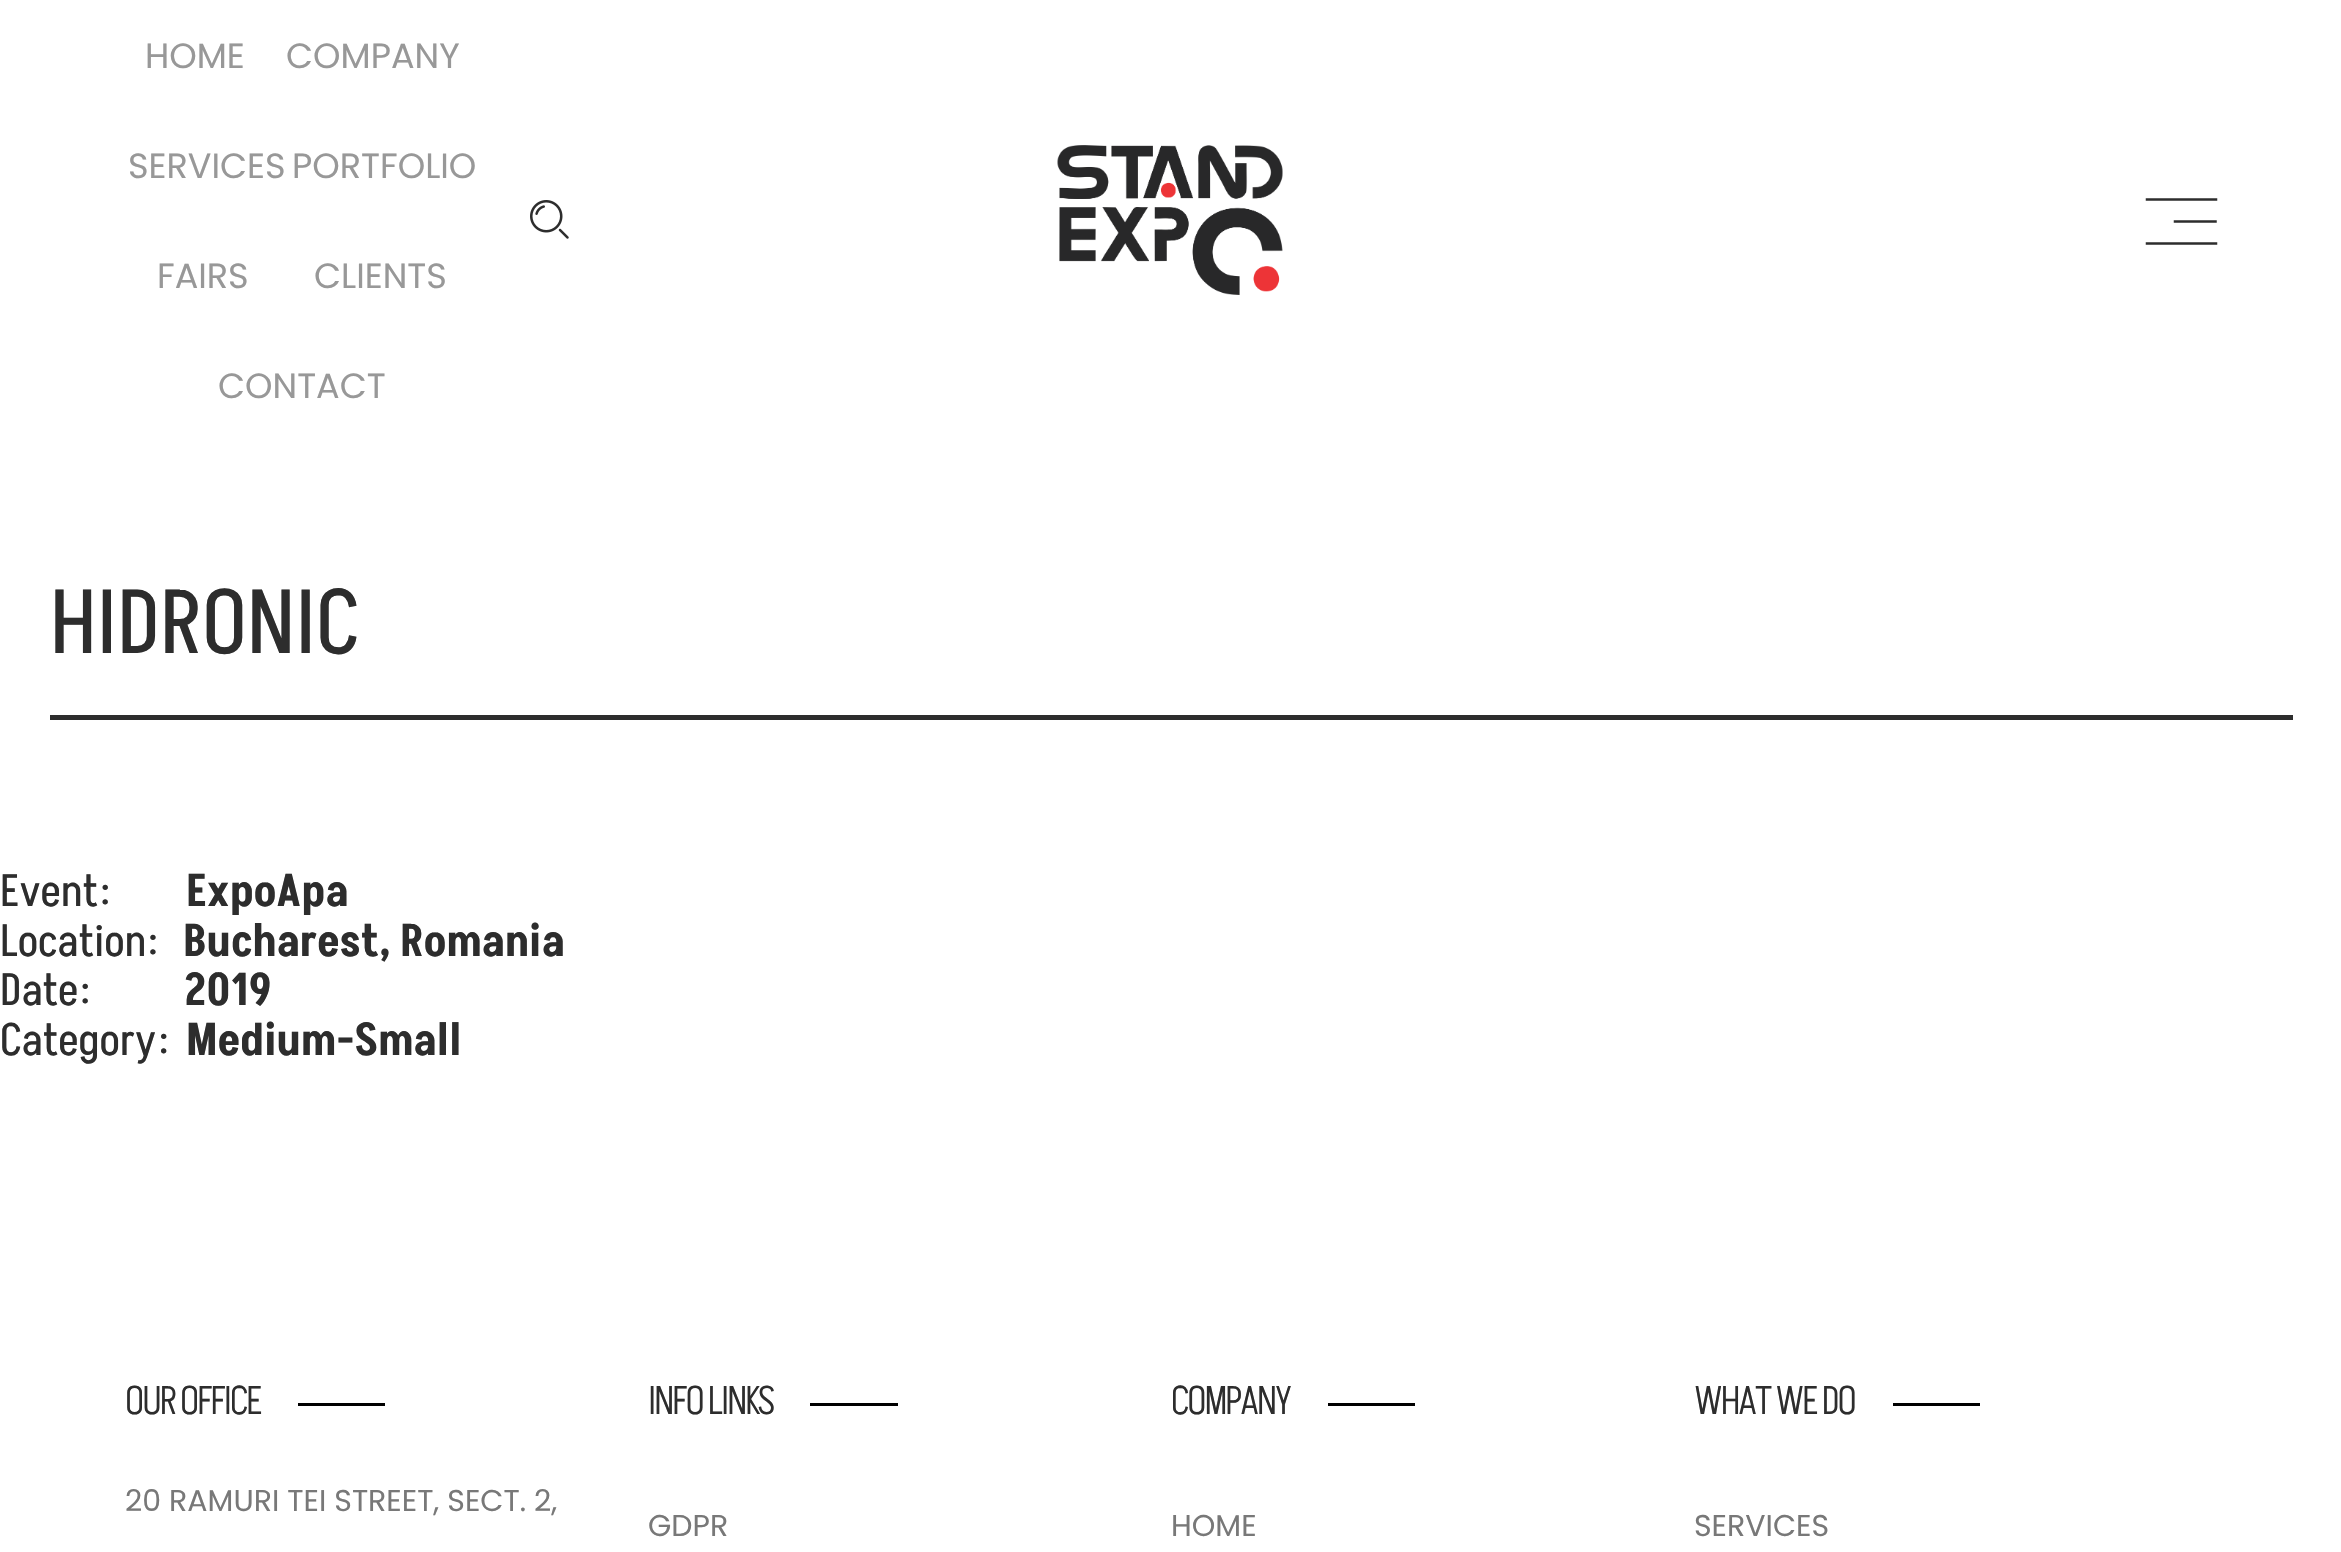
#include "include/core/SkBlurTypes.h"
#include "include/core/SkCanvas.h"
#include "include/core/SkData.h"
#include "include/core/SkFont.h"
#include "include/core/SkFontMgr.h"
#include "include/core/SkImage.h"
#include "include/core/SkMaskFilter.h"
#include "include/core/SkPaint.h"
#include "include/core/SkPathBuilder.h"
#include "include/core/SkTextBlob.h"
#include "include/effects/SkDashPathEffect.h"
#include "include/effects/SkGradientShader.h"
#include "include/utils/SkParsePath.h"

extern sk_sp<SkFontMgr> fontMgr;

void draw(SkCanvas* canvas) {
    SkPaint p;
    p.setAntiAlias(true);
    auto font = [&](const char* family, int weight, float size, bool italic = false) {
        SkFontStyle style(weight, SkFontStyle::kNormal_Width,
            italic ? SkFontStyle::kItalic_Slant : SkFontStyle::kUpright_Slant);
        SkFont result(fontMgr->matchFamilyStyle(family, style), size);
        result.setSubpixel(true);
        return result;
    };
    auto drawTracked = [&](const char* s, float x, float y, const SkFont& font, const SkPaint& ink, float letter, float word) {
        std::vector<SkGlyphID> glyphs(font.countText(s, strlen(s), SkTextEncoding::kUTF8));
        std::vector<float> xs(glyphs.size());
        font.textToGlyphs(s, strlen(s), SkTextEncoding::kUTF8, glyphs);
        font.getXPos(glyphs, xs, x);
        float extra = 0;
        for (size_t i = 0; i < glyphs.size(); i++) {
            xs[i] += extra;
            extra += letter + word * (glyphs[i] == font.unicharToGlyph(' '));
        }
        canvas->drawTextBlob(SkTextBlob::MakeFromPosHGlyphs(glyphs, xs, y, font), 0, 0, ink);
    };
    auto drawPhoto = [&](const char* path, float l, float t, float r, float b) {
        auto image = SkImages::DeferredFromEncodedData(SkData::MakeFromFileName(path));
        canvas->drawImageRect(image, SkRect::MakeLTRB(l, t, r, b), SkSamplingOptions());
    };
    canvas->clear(0xFFFFFFFF);
    auto font1 = font("Poppins", 400, 35);
    p.setColor(0xFF989898);
    {
        const struct { const char* s; float x, y; } items[] = {
            {"HOME", 145, 68},
            {"COMPANY", 286, 68},
            {"SERVICES", 128, 178},
            {"PORTFOLIO", 292, 178},
            {"FAIRS", 157, 288},
            {"CLIENTS", 314, 288},
            {"CONTACT", 218, 398},
        };
        for (auto [s, x, y] : items) {
            canvas->drawString(s, x, y, font1, p);
        }
    }
    drawPhoto("media/1.png", 530, 200, 569, 239);
    drawPhoto("media/2.png", 1057, 145, 1283, 295);
    p.setStyle(SkPaint::kStroke_Style);
    p.setStrokeWidth(2.5f);
    p.setStrokeCap(SkPaint::kSquare_Cap);
    p.setColor(0xFF2D2D2D);
    canvas->drawPath(SkPathBuilder().moveTo(2175, 221.5f).lineTo(2215.5f, 221.5f).moveTo(2147, 199.5f).lineTo(2216, 199.5f).moveTo(2147, 243.5f).lineTo(2216, 243.5f).detach(), p);
    p.setStyle(SkPaint::kFill_Style);
    canvas->drawRect(SkRect::MakeLTRB(50, 715, 2293, 720), p);
    auto font2 = font("Akshar", 400, 90);
    canvas->drawString("HIDRONIC", 50, 653, font2, p);
    auto font3 = font("Akshar", 400, 45);
    canvas->drawString("Event:", 0, 906, font3, p);
    auto font4 = font("Akshar", 600, 45);
    canvas->drawString("ExpoApa", 186, 906, font4, p);
    canvas->drawString("Location:", 0, 956, font3, p);
    canvas->drawString("Bucharest, Romania", 183, 956, font4, p);
    canvas->drawString("Date:", 0, 1005, font3, p);
    canvas->drawString("2019", 183, 1005, font4, p);
    canvas->drawString("Category:", 0, 1055, font3, p);
    canvas->drawString("Medium-Small", 186, 1055, font4, p);
    auto font5 = font("Akshar", 300, 40);
    drawTracked("OUR OFFICE", 125, 1414, font5, p, -2, 0);
    p.setColor(0xFF000000);
    canvas->drawRect(SkRect::MakeLTRB(298, 1403, 385, 1406), p);
    auto font6 = font("Poppins", 400, 30);
    p.setColor(0xFF787878);
    canvas->drawString("20 RAMURI TEI STREET, SECT. 2,", 125, 1511, font6, p);
    p.setColor(0xFF2D2D2D);
    drawTracked("INFO LINKS", 648, 1414, font5, p, -2, 0);
    p.setColor(0xFF000000);
    canvas->drawRect(SkRect::MakeLTRB(810, 1403, 898, 1406), p);
    p.setColor(0xFF787878);
    canvas->drawString("GDPR", 648, 1536, font6, p);
    p.setColor(0xFF2D2D2D);
    drawTracked("COMPANY", 1171, 1414, font5, p, -2, 0);
    p.setColor(0xFF000000);
    canvas->drawRect(SkRect::MakeLTRB(1328, 1403, 1415, 1406), p);
    p.setColor(0xFF787878);
    canvas->drawString("HOME", 1171, 1536, font6, p);
    p.setColor(0xFF2D2D2D);
    drawTracked("WHAT WE DO", 1694, 1414, font5, p, -2, 0);
    p.setColor(0xFF000000);
    canvas->drawRect(SkRect::MakeLTRB(1893, 1403, 1980, 1406), p);
    p.setColor(0xFF787878);
    canvas->drawString("SERVICES", 1694, 1536, font6, p);
}
